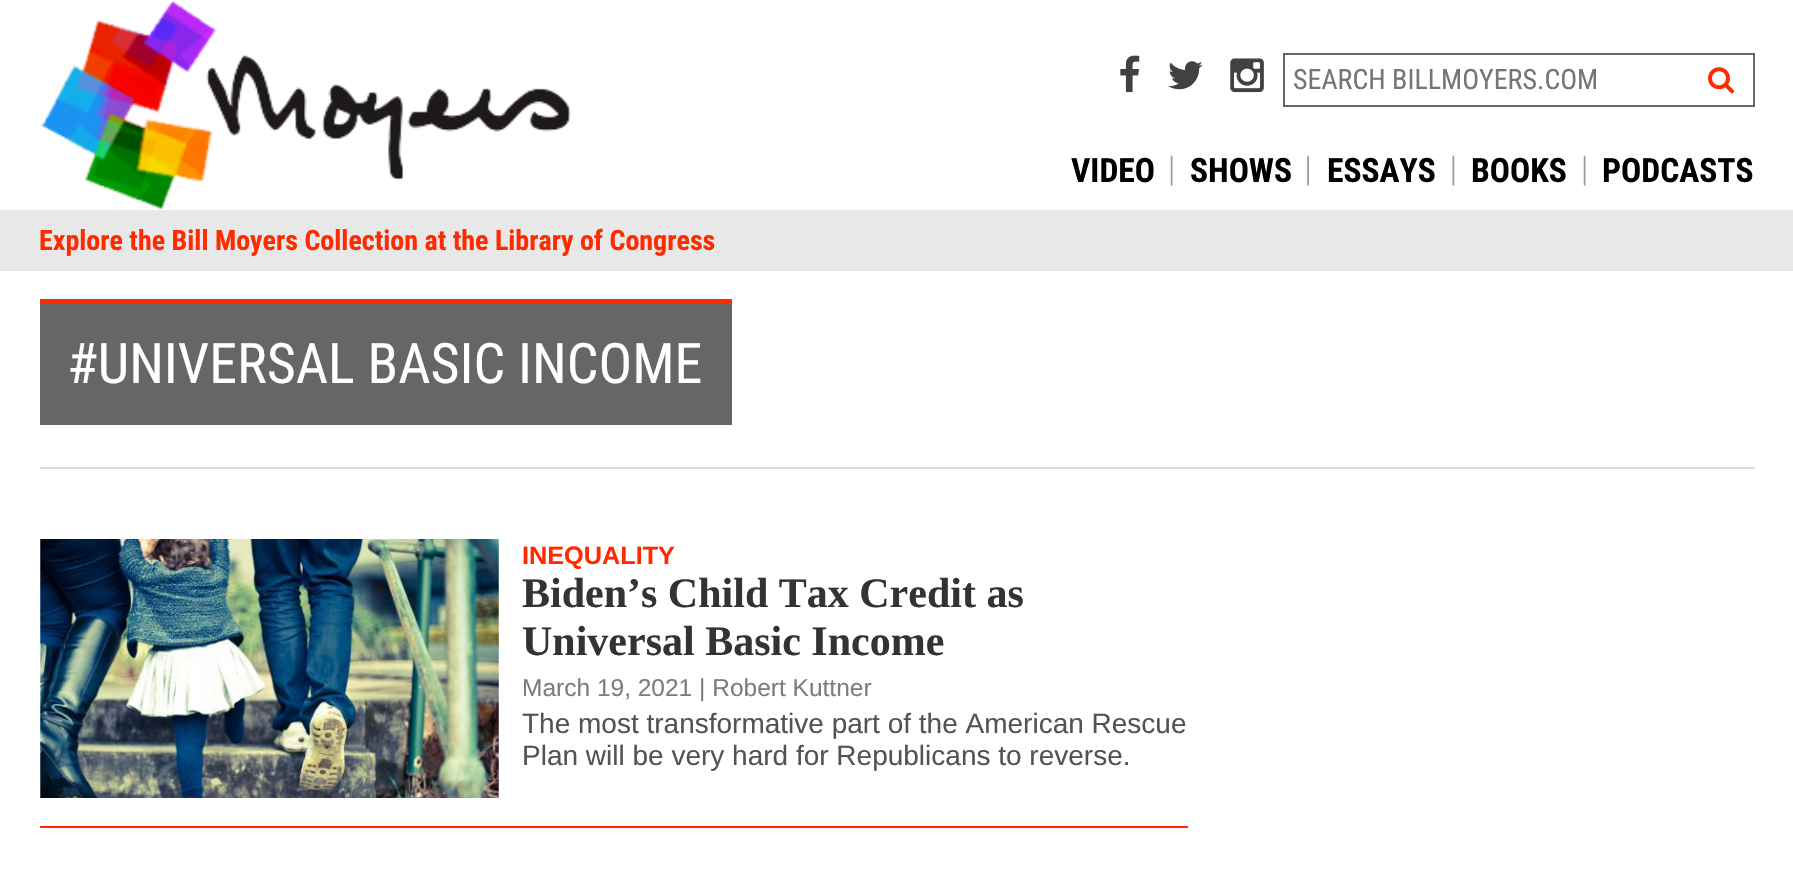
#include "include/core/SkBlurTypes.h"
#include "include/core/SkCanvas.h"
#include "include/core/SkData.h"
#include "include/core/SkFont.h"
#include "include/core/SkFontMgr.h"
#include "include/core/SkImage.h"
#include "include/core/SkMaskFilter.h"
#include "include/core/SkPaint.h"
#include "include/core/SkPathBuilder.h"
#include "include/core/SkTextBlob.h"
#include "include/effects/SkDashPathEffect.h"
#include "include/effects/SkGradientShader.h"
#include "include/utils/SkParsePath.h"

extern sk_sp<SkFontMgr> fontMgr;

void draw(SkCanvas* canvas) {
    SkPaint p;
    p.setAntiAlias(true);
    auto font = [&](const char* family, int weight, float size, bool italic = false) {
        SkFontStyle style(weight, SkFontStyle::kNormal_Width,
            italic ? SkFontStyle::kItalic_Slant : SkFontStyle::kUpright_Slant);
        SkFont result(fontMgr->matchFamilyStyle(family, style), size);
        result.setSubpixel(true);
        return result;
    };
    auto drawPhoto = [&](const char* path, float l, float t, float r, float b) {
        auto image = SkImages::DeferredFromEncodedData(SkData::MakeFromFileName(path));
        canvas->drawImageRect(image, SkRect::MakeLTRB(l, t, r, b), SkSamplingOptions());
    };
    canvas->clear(0xFFFFFFFF);
    drawPhoto("media/1.png", 40, 0, 571, 210);
    drawPhoto("media/2.png", 1120, 55, 1140, 93);
    drawPhoto("media/3.png", 1168, 61, 1203, 90);
    drawPhoto("media/4.png", 1230, 58, 1264, 93);
    p.setStyle(SkPaint::kStroke_Style);
    p.setStrokeWidth(2);
    p.setColor(0xFF666666);
    canvas->drawRect(SkRect::MakeLTRB(1284, 54, 1754, 106), p);
    auto font1 = font("Roboto Condensed", 400, 28);
    p.setStyle(SkPaint::kFill_Style);
    p.setColor(0xFF757575);
    canvas->drawString("SEARCH BILLMOYERS.COM", 1293, 89, font1, p);
    drawPhoto("media/5.png", 1708, 67, 1734, 94);
    drawPhoto("media/6.png", 1170, 155, 1173, 186);
    auto font2 = font("Roboto Condensed", 700, 33.5f);
    p.setColor(0xFF000000);
    canvas->drawString("VIDEO", 1071, 182, font2, p);
    drawPhoto("media/7.png", 1307, 155, 1309, 186);
    canvas->drawString("SHOWS", 1190, 182, font2, p);
    drawPhoto("media/8.png", 1452, 155, 1455, 186);
    canvas->drawString("ESSAYS", 1327, 182, font2, p);
    drawPhoto("media/6.png", 1583, 155, 1586, 186);
    canvas->drawString("BOOKS", 1471, 182, font2, p);
    canvas->drawString("PODCASTS", 1602, 182, font2, p);
    p.setColor(0xFFE8E8E8);
    canvas->drawRect(SkRect::MakeLTRB(0, 210, 1793, 271), p);
    auto font3 = font("Roboto Condensed", 700, 28);
    p.setColor(0xFFFF2A00);
    canvas->drawString("Explore the Bill Moyers Collection at the Library of Congress", 39, 250, font3, p);
    {
        const struct { float l, t, r, b; SkColor color; } items[] = {
            {40, 467, 1755, 469, 0xFFDDDDDD},
            {40, 303, 732, 425, 0xFF666666},
            {40, 299, 732, 303, 0xFFFF2A00},
        };
        for (auto [l, t, r, b, color] : items) {
            p.setColor(color);
            canvas->drawRect(SkRect::MakeLTRB(l, t, r, b), p);
        }
    }
    auto font4 = font("Roboto Condensed", 400, 56);
    p.setColor(0xFFFFFFFF);
    canvas->drawString("#UNIVERSAL BASIC INCOME", 67, 383, font4, p);
    drawPhoto("media/9.png", 40, 539, 499, 798);
    auto font5 = font("Liberation Sans", 700, 25.25f);
    p.setColor(0xFFFF2A00);
    canvas->drawString("INEQUALITY", 522, 564, font5, p);
    auto font6 = font("Liberation Serif", 700, 42);
    p.setColor(0xFF333333);
    canvas->drawString("Biden’s Child Tax Credit as", 522, 607, font6, p);
    canvas->drawString("Universal Basic Income", 522, 655, font6, p);
    auto font7 = font("Liberation Sans", 400, 24.5f);
    p.setColor(0xFF7D7D7D);
    canvas->drawString("March 19, 2021 | Robert Kuttner", 522, 696, font7, p);
    auto font8 = font("Liberation Sans", 400, 28);
    p.setColor(0xFF535353);
    canvas->drawString("The most transformative part of the American Rescue", 522, 733, font8, p);
    canvas->drawString("Plan will be very hard for Republicans to reverse.", 522, 765, font8, p);
    p.setColor(0xFFFF2A00);
    canvas->drawRect(SkRect::MakeLTRB(40, 826, 1188, 828), p);
}
